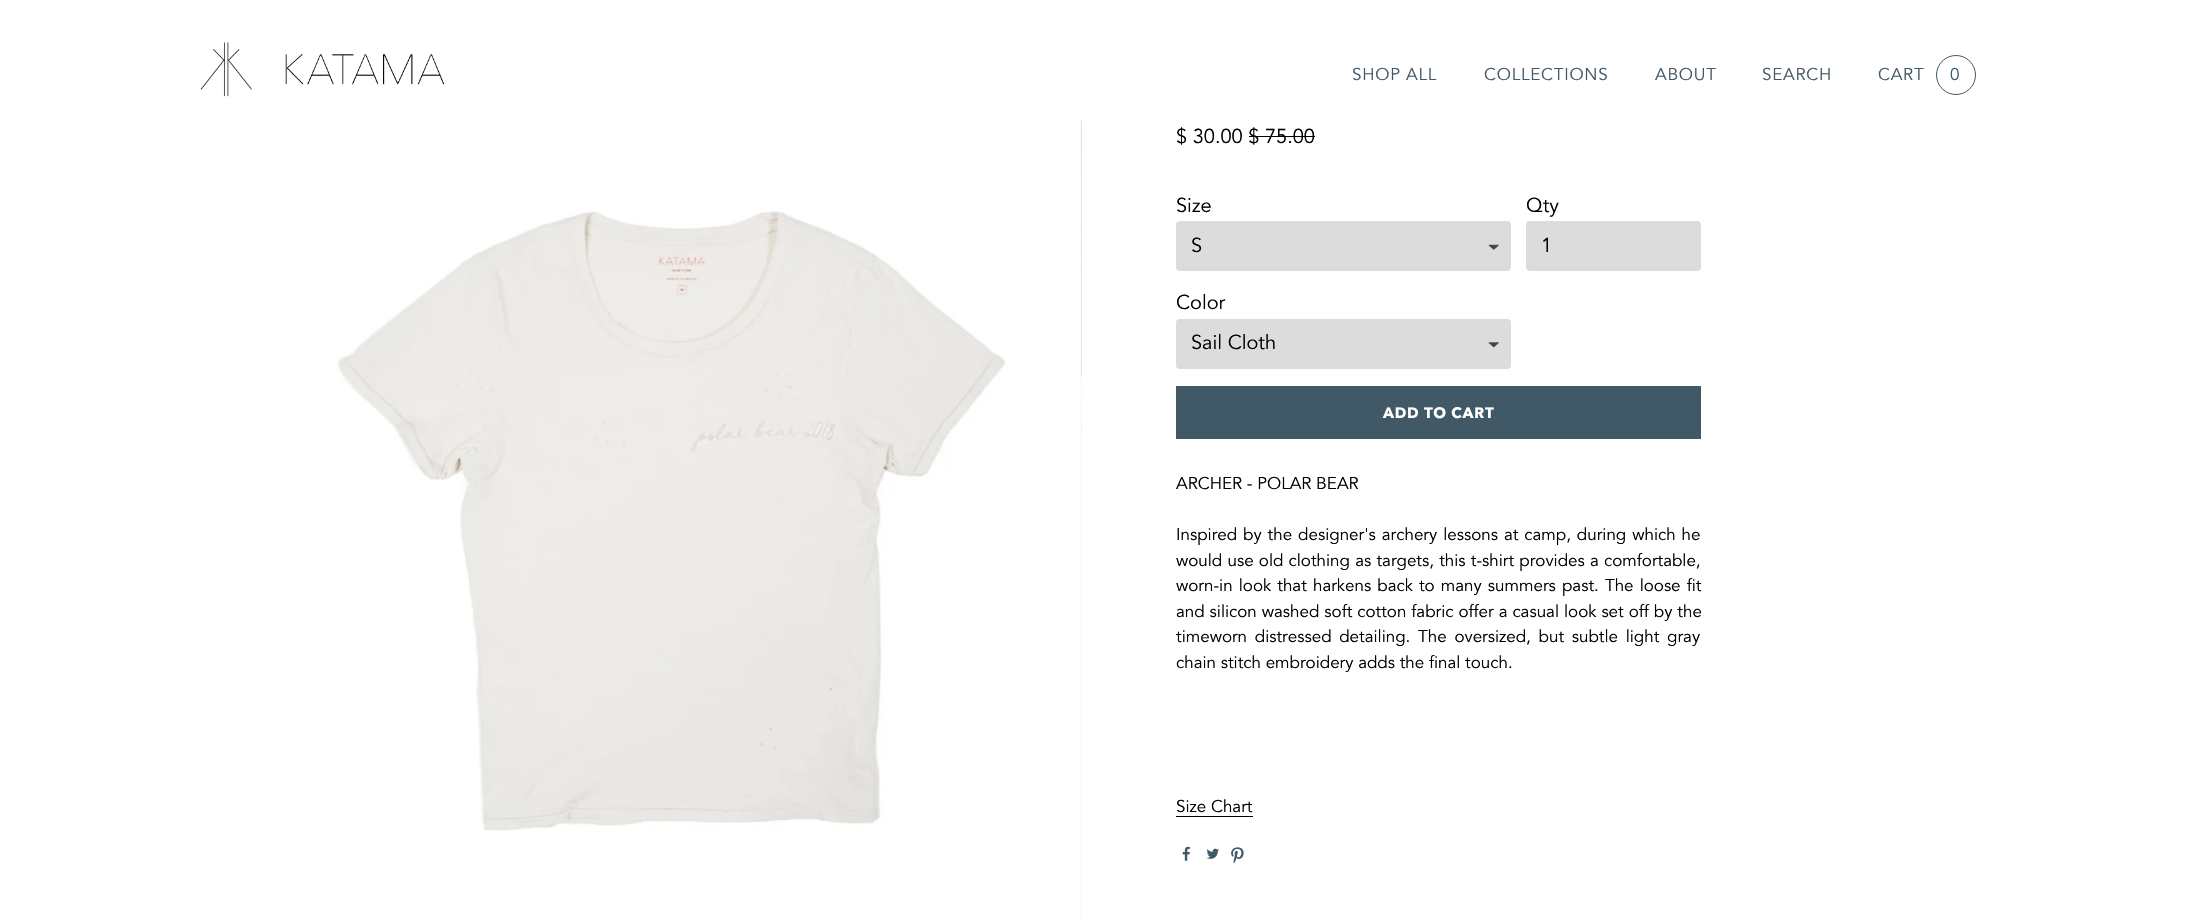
#include "include/core/SkBlurTypes.h"
#include "include/core/SkCanvas.h"
#include "include/core/SkData.h"
#include "include/core/SkFont.h"
#include "include/core/SkFontMgr.h"
#include "include/core/SkImage.h"
#include "include/core/SkMaskFilter.h"
#include "include/core/SkPaint.h"
#include "include/core/SkPathBuilder.h"
#include "include/core/SkTextBlob.h"
#include "include/effects/SkDashPathEffect.h"
#include "include/effects/SkGradientShader.h"
#include "include/utils/SkParsePath.h"

extern sk_sp<SkFontMgr> fontMgr;

void draw(SkCanvas* canvas) {
    SkPaint p;
    p.setAntiAlias(true);
    auto font = [&](const char* family, int weight, float size, bool italic = false) {
        SkFontStyle style(weight, SkFontStyle::kNormal_Width,
            italic ? SkFontStyle::kItalic_Slant : SkFontStyle::kUpright_Slant);
        SkFont result(fontMgr->matchFamilyStyle(family, style), size);
        result.setSubpixel(true);
        return result;
    };
    auto drawTracked = [&](const char* s, float x, float y, const SkFont& font, const SkPaint& ink, float letter, float word) {
        std::vector<SkGlyphID> glyphs(font.countText(s, strlen(s), SkTextEncoding::kUTF8));
        std::vector<float> xs(glyphs.size());
        font.textToGlyphs(s, strlen(s), SkTextEncoding::kUTF8, glyphs);
        font.getXPos(glyphs, xs, x);
        float extra = 0;
        for (size_t i = 0; i < glyphs.size(); i++) {
            xs[i] += extra;
            extra += letter + word * (glyphs[i] == font.unicharToGlyph(' '));
        }
        canvas->drawTextBlob(SkTextBlob::MakeFromPosHGlyphs(glyphs, xs, y, font), 0, 0, ink);
    };
    auto drawPhoto = [&](const char* path, float l, float t, float r, float b) {
        auto image = SkImages::DeferredFromEncodedData(SkData::MakeFromFileName(path));
        canvas->drawImageRect(image, SkRect::MakeLTRB(l, t, r, b), SkSamplingOptions());
    };
    canvas->clear(0xFFFFFFFF);
    drawPhoto("media/1.png", 200, 42, 445, 97);
    auto font1 = font("Avenir", 400, 17);
    p.setColor(0xFF415866);
    {
        const struct { const char* s; float x, y; } items[] = {
            {"SHOP ALL", 1352, 80},
            {"COLLECTIONS", 1484, 80},
            {"ABOUT", 1655, 80},
            {"SEARCH", 1762, 80},
            {"CART", 1878, 80},
        };
        for (auto [s, x, y] : items) {
            drawTracked(s, x, y, font1, p, 0.75f, 0);
        }
    }
    p.setStyle(SkPaint::kStroke_Style);
    p.setStrokeWidth(1);
    canvas->drawCircle(1956, 75, 19.5f, p);
    p.setStyle(SkPaint::kFill_Style);
    drawTracked("0", 1950, 80, font1, p, 0.75f, 0);
    drawPhoto("media/2.png", 337, 211, 1006, 831);
    drawPhoto("media/3.png", 1080, 120, 1082, 922);
    auto font2 = font("Avenir", 400, 20);
    p.setColor(0xFF000000);
    canvas->drawString("$ 30.00 $ 75.00", 1176, 143, font2, p);
    canvas->drawRect(SkRect::MakeLTRB(1249, 136, 1315, 137), p);
    canvas->drawString("Size", 1176, 212, font2, p);
    p.setColor(0xFFDCDCDC);
    canvas->drawRoundRect(SkRect::MakeLTRB(1176, 221, 1511, 271), 4, 4, p);
    drawPhoto("media/4.png", 1488, 244, 1499, 250);
    p.setColor(0xFF000000);
    canvas->drawString("S", 1191, 252, font2, p);
    canvas->drawString("Color", 1176, 309, font2, p);
    p.setColor(0xFFDCDCDC);
    canvas->drawRoundRect(SkRect::MakeLTRB(1176, 319, 1511, 369), 4, 4, p);
    drawPhoto("media/5.png", 1488, 342, 1499, 348);
    p.setColor(0xFF000000);
    canvas->drawString("Sail Cloth", 1191, 349, font2, p);
    canvas->drawString("Qty", 1526, 212, font2, p);
    p.setColor(0xFFDCDCDC);
    canvas->drawRoundRect(SkRect::MakeLTRB(1526, 221, 1701, 271), 4, 4, p);
    p.setColor(0xFF000000);
    canvas->drawString("1", 1541, 252, font2, p);
    p.setColor(0xFF415866);
    canvas->drawRect(SkRect::MakeLTRB(1176, 386, 1701, 439), p);
    auto font3 = font("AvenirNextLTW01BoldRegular", 700, 15);
    p.setColor(0xFFFFFFFF);
    drawTracked("ADD TO CART", 1383, 418, font3, p, 0.75f, 0);
    p.setColor(0xFF000000);
    canvas->drawString("ARCHER - POLAR BEAR", 1176, 489, font1, p);
    drawTracked("Inspired by the designer's archery lessons at camp, during which he", 1176, 540, font1, p, 0, 1.25f);
    drawTracked("would use old clothing as targets, this t-shirt provides a comfortable,", 1176, 566, font1, p, 0, 0.5f);
    drawTracked("worn-in look that harkens back to many summers past. The loose fit", 1176, 591, font1, p, 0, 1.4f);
    drawTracked("and silicon washed soft cotton fabric offer a casual look set off by the", 1176, 617, font1, p, 0, 0.25f);
    drawTracked("timeworn distressed detailing. The oversized, but subtle light gray", 1176, 642, font1, p, 0, 3);
    canvas->drawString("chain stitch embroidery adds the final touch.", 1176, 668, font1, p);
    canvas->drawString("Size Chart", 1176, 812, font1, p);
    canvas->drawRect(SkRect::MakeLTRB(1176, 816, 1253, 817), p);
    drawPhoto("media/6.png", 1182, 846, 1190, 861);
    drawPhoto("media/7.png", 1206, 848, 1219, 859);
    drawPhoto("media/8.png", 1231, 847, 1244, 864);
}
